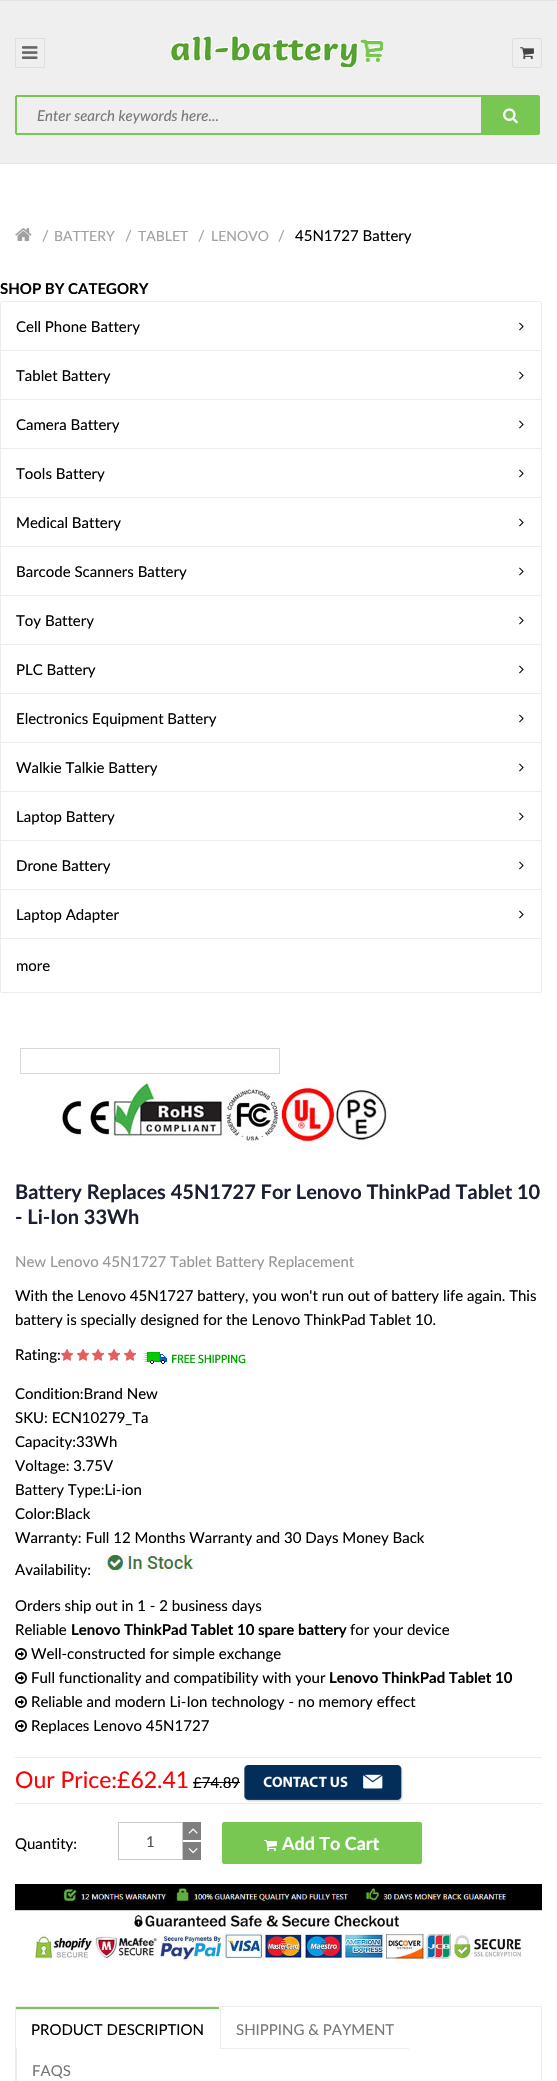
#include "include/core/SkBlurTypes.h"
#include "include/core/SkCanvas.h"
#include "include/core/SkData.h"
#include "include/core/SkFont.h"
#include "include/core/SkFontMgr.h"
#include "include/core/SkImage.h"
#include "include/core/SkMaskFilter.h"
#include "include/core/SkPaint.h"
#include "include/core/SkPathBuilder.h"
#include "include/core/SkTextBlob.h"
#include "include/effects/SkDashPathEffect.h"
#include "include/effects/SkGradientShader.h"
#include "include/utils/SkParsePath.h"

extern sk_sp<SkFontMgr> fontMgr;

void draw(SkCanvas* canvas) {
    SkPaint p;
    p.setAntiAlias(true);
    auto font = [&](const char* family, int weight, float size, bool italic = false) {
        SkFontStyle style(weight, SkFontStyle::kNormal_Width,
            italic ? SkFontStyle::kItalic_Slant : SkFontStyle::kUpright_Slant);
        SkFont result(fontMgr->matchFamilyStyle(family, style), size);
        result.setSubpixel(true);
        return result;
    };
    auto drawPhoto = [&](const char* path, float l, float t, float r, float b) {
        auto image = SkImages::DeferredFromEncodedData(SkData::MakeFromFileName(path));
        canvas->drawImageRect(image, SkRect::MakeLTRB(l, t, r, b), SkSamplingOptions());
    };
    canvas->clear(0xFFFFFFFF);
    p.setColor(0xFFEFEFEF);
    canvas->drawRect(SkRect::MakeLTRB(0, 1, 557, 163), p);
    p.setStyle(SkPaint::kStroke_Style);
    p.setStrokeWidth(1);
    p.setColor(0xFFDEDEDE);
    canvas->drawRect(SkRect::MakeLTRB(15.5f, 38.5f, 44.5f, 67.5f), p);
    drawPhoto("media/1.png", 22, 46, 38, 59);
    p.setStyle(SkPaint::kFill_Style);
    p.setColor(0xFFE4E4E4);
    canvas->drawRect(SkRect::MakeLTRB(0, 0, 557, 1), p);
    canvas->drawRect(SkRect::MakeLTRB(0, 163, 557, 164), p);
    drawPhoto("media/2.png", 171, 36, 383, 67);
    p.setStyle(SkPaint::kStroke_Style);
    p.setColor(0xFFDEDEDE);
    canvas->drawRoundRect(SkRect::MakeLTRB(512.5f, 38.5f, 541.5f, 67.5f), 1.5f, 1.5f, p);
    drawPhoto("media/3.png", 520, 47, 534, 60);
    p.setStyle(SkPaint::kFill_Style);
    {
        const struct { float l, t, r, b; SkColor color; } items[] = {
            {16, 95, 481, 97, 0xFF79C753},
            {16, 133, 481, 135, 0xFF79C753},
            {15, 96, 17, 134, 0xFF79C753},
        };
        for (auto [l, t, r, b, color] : items) {
            p.setColor(color);
            canvas->drawRect(SkRect::MakeLTRB(l, t, r, b), p);
        }
    }
    auto font1 = font("Lato", 400, 15, true);
    p.setColor(0xFF777777);
    canvas->drawString("Enter search keywords here...", 37, 121, font1, p);
    p.setColor(0xFF79C753);
    canvas->drawPath(SkPathBuilder().moveTo(481, 95).lineTo(538, 95).cubicTo(539, 95, 540, 96, 540, 97).lineTo(540, 133).cubicTo(540, 134, 539, 135, 538, 135).lineTo(481, 135).close().detach(), p);
    drawPhoto("media/4.png", 503, 108, 518, 124);
    drawPhoto("media/5.png", 15, 228, 32, 241);
    auto font2 = font("Lato", 400, 15);
    p.setColor(0xFFA1A1A1);
    canvas->drawString("/", 42, 241, font2, p);
    auto font3 = font("Lato", 400, 14);
    canvas->drawString("BATTERY", 54, 241, font3, p);
    canvas->drawString("/", 125, 241, font2, p);
    canvas->drawString("TABLET", 138, 241, font3, p);
    canvas->drawString("/", 198, 241, font2, p);
    canvas->drawString("LENOVO", 211, 241, font3, p);
    canvas->drawString("/", 278, 241, font2, p);
    p.setColor(0xFF000000);
    canvas->drawString("45N1727 Battery", 295, 241, font2, p);
    auto font4 = font("Lato", 700, 15);
    canvas->drawString("SHOP BY CATEGORY", 0, 294, font4, p);
    p.setStyle(SkPaint::kStroke_Style);
    p.setColor(0xFFEDEDED);
    canvas->drawPath(SkPathBuilder().moveTo(2, 301.5f).lineTo(540, 301.5f).cubicTo(541, 301.5f, 541.5f, 302, 541.5f, 303).lineTo(541.5f, 350.5f).lineTo(0.5f, 350.5f).lineTo(0.5f, 303).cubicTo(0.5f, 302, 1, 301.5f, 2, 301.5f).close().detach(), p);
    p.setStyle(SkPaint::kFill_Style);
    p.setColor(0xFF000000);
    canvas->drawString("Cell Phone Battery", 16, 332, font2, p);
    drawPhoto("media/6.png", 519, 322, 524, 331);
    {
        const struct { float l, t, r, b; SkColor color; } items[] = {
            {541, 351, 542, 992, 0xFFEDEDED},
            {0, 399, 542, 400, 0xFFEDEDED},
            {0, 351, 1, 400, 0xFFEDEDED},
        };
        for (auto [l, t, r, b, color] : items) {
            p.setColor(color);
            canvas->drawRect(SkRect::MakeLTRB(l, t, r, b), p);
        }
    }
    p.setColor(0xFF000000);
    canvas->drawString("Tablet Battery", 16, 381, font2, p);
    drawPhoto("media/6.png", 519, 371, 524, 380);
    p.setColor(0xFFEDEDED);
    canvas->drawRect(SkRect::MakeLTRB(0, 448, 542, 449), p);
    canvas->drawRect(SkRect::MakeLTRB(0, 400, 1, 449), p);
    p.setColor(0xFF000000);
    canvas->drawString("Camera Battery", 16, 430, font2, p);
    drawPhoto("media/6.png", 519, 420, 524, 429);
    p.setColor(0xFFEDEDED);
    canvas->drawRect(SkRect::MakeLTRB(0, 497, 542, 498), p);
    canvas->drawRect(SkRect::MakeLTRB(0, 449, 1, 498), p);
    p.setColor(0xFF000000);
    canvas->drawString("Tools Battery", 16, 479, font2, p);
    drawPhoto("media/6.png", 519, 469, 524, 478);
    p.setColor(0xFFEDEDED);
    canvas->drawRect(SkRect::MakeLTRB(0, 546, 542, 547), p);
    canvas->drawRect(SkRect::MakeLTRB(0, 498, 1, 547), p);
    p.setColor(0xFF000000);
    canvas->drawString("Medical Battery", 16, 528, font2, p);
    drawPhoto("media/6.png", 519, 518, 524, 527);
    p.setColor(0xFFEDEDED);
    canvas->drawRect(SkRect::MakeLTRB(0, 595, 542, 596), p);
    canvas->drawRect(SkRect::MakeLTRB(0, 547, 1, 596), p);
    p.setColor(0xFF000000);
    canvas->drawString("Barcode Scanners Battery", 16, 577, font2, p);
    drawPhoto("media/6.png", 519, 567, 524, 576);
    p.setColor(0xFFEDEDED);
    canvas->drawRect(SkRect::MakeLTRB(0, 644, 542, 645), p);
    canvas->drawRect(SkRect::MakeLTRB(0, 596, 1, 645), p);
    p.setColor(0xFF000000);
    canvas->drawString("Toy Battery", 16, 626, font2, p);
    drawPhoto("media/6.png", 519, 616, 524, 625);
    p.setColor(0xFFEDEDED);
    canvas->drawRect(SkRect::MakeLTRB(0, 693, 542, 694), p);
    canvas->drawRect(SkRect::MakeLTRB(0, 645, 1, 694), p);
    p.setColor(0xFF000000);
    canvas->drawString("PLC Battery", 16, 675, font2, p);
    drawPhoto("media/6.png", 519, 665, 524, 674);
    p.setColor(0xFFEDEDED);
    canvas->drawRect(SkRect::MakeLTRB(0, 742, 542, 743), p);
    canvas->drawRect(SkRect::MakeLTRB(0, 694, 1, 743), p);
    p.setColor(0xFF000000);
    canvas->drawString("Electronics Equipment Battery", 16, 724, font2, p);
    drawPhoto("media/6.png", 519, 714, 524, 723);
    p.setColor(0xFFEDEDED);
    canvas->drawRect(SkRect::MakeLTRB(0, 791, 542, 792), p);
    canvas->drawRect(SkRect::MakeLTRB(0, 743, 1, 792), p);
    p.setColor(0xFF000000);
    canvas->drawString("Walkie Talkie Battery", 16, 773, font2, p);
    drawPhoto("media/6.png", 519, 763, 524, 772);
    p.setColor(0xFFEDEDED);
    canvas->drawRect(SkRect::MakeLTRB(0, 840, 542, 841), p);
    canvas->drawRect(SkRect::MakeLTRB(0, 792, 1, 841), p);
    p.setColor(0xFF000000);
    canvas->drawString("Laptop Battery", 16, 822, font2, p);
    drawPhoto("media/6.png", 519, 812, 524, 821);
    p.setColor(0xFFEDEDED);
    canvas->drawRect(SkRect::MakeLTRB(0, 889, 542, 890), p);
    canvas->drawRect(SkRect::MakeLTRB(0, 841, 1, 890), p);
    p.setColor(0xFF000000);
    canvas->drawString("Drone Battery", 16, 871, font2, p);
    drawPhoto("media/6.png", 519, 861, 524, 870);
    p.setColor(0xFFEDEDED);
    canvas->drawRect(SkRect::MakeLTRB(0, 938, 542, 939), p);
    canvas->drawRect(SkRect::MakeLTRB(0, 890, 1, 992), p);
    p.setColor(0xFF000000);
    canvas->drawString("Laptop Adapter", 16, 920, font2, p);
    drawPhoto("media/6.png", 519, 910, 524, 919);
    p.setColor(0xFFEDEDED);
    canvas->drawRect(SkRect::MakeLTRB(1, 992, 541, 993), p);
    p.setColor(0xFF000000);
    canvas->drawString("more", 16, 971, font2, p);
    p.setStyle(SkPaint::kStroke_Style);
    p.setColor(0xFFD7D7D7);
    canvas->drawRect(SkRect::MakeLTRB(20.5f, 1048.5f, 279.5f, 1073.5f), p);
    drawPhoto("media/7.png", 61, 1082, 391, 1146);
    auto font5 = font("Lato", 700, 20);
    p.setStyle(SkPaint::kFill_Style);
    p.setColor(0xFF1B1F32);
    canvas->drawString("Battery Replaces 45N1727 For Lenovo ThinkPad Tablet 10", 15, 1199, font5, p);
    canvas->drawString("- Li-Ion 33Wh", 15, 1224, font5, p);
    p.setColor(0xFF969696);
    canvas->drawString("New Lenovo 45N1727 Tablet Battery Replacement", 15, 1267, font2, p);
    p.setColor(0xFF000000);
    {
        const struct { const char* s; float x, y; } items[] = {
            {"With the Lenovo 45N1727 battery, you won't run out of battery life again. This", 15, 1301},
            {"battery is specially designed for the Lenovo ThinkPad Tablet 10.", 15, 1325},
            {"Rating:", 15, 1360},
        };
        for (auto [s, x, y] : items) {
            canvas->drawString(s, x, y, font2, p);
        }
    }
    drawPhoto("media/8.png", 61, 1349, 73, 1361);
    drawPhoto("media/9.png", 61, 1349, 73, 1361);
    drawPhoto("media/8.png", 77, 1349, 89, 1361);
    drawPhoto("media/9.png", 77, 1349, 89, 1361);
    drawPhoto("media/8.png", 92, 1349, 104, 1361);
    drawPhoto("media/9.png", 92, 1349, 104, 1361);
    drawPhoto("media/8.png", 108, 1349, 120, 1361);
    drawPhoto("media/9.png", 108, 1349, 120, 1361);
    drawPhoto("media/8.png", 124, 1349, 136, 1361);
    drawPhoto("media/9.png", 124, 1349, 136, 1361);
    drawPhoto("media/10.png", 142, 1352, 246, 1364);
    p.setColor(0xFFEBEBEB);
    canvas->drawRect(SkRect::MakeLTRB(15, 1757, 542, 1758), p);
    p.setColor(0xFF000000);
    {
        const struct { const char* s; float x, y; } items[] = {
            {"Condition:Brand New", 15, 1399},
            {"SKU: ECN10279_Ta", 15, 1423},
            {"Capacity:33Wh", 15, 1447},
            {"Voltage: 3.75V", 15, 1471},
            {"Battery Type:Li-ion", 15, 1495},
            {"Color:Black", 15, 1519},
            {"Warranty: Full 12 Months Warranty and 30 Days Money Back", 15, 1543},
            {"Availability:", 15, 1575},
        };
        for (auto [s, x, y] : items) {
            canvas->drawString(s, x, y, font2, p);
        }
    }
    drawPhoto("media/11.png", 103, 1549, 199, 1573);
    canvas->drawString("Orders ship out in 1 - 2 business days", 15, 1611, font2, p);
    canvas->drawString("Reliable", 15, 1635, font2, p);
    canvas->drawString("Lenovo ThinkPad Tablet 10 spare battery", 71, 1635, font4, p);
    canvas->drawString("for your device", 350, 1635, font2, p);
    drawPhoto("media/12.png", 15, 1648, 27, 1660);
    canvas->drawString("Well-constructed for simple exchange", 31, 1659, font2, p);
    drawPhoto("media/12.png", 15, 1672, 27, 1684);
    canvas->drawString("Full functionality and compatibility with your", 31, 1683, font2, p);
    canvas->drawString("Lenovo ThinkPad Tablet 10", 329, 1683, font4, p);
    drawPhoto("media/12.png", 15, 1696, 27, 1708);
    canvas->drawString("Reliable and modern Li-Ion technology - no memory effect", 31, 1707, font2, p);
    drawPhoto("media/12.png", 15, 1720, 27, 1732);
    canvas->drawString("Replaces Lenovo 45N1727", 31, 1731, font2, p);
    p.setColor(0xFFEBEBEB);
    canvas->drawRect(SkRect::MakeLTRB(15, 1803, 542, 1804), p);
    auto font6 = font("Lato", 400, 23);
    p.setColor(0xFFFB0206);
    canvas->drawString("Our Price:£62.41", 15, 1788, font6, p);
    p.setColor(0xFF000000);
    canvas->drawString("£74.89", 193, 1788, font2, p);
    canvas->drawRect(SkRect::MakeLTRB(193, 1782, 240, 1783), p);
    drawPhoto("media/13.png", 244, 1765, 403, 1802);
    canvas->drawString("Quantity:", 15, 1849, font2, p);
    p.setColor(0xFF7F7F7F);
    canvas->drawRect(SkRect::MakeLTRB(183, 1822, 201, 1840), p);
    drawPhoto("media/14.png", 188, 1828, 198, 1834);
    p.setStyle(SkPaint::kStroke_Style);
    p.setColor(0xFFC9C9C9);
    canvas->drawRect(SkRect::MakeLTRB(118.5f, 1822.5f, 182.5f, 1859.5f), p);
    p.setStyle(SkPaint::kFill_Style);
    p.setColor(0xFF555555);
    canvas->drawString("1", 146, 1847, font2, p);
    p.setColor(0xFF7F7F7F);
    canvas->drawRect(SkRect::MakeLTRB(183, 1842, 201, 1860), p);
    drawPhoto("media/15.png", 188, 1848, 198, 1854);
    p.setColor(0xFF79C753);
    canvas->drawRoundRect(SkRect::MakeLTRB(222.5f, 1822.5f, 421.5f, 1863.5f), 1.5f, 1.5f, p);
    p.setStyle(SkPaint::kStroke_Style);
    canvas->drawRoundRect(SkRect::MakeLTRB(222.5f, 1822.5f, 421.5f, 1863.5f), 1.5f, 1.5f, p);
    drawPhoto("media/16.png", 264, 1840, 277, 1851);
    auto font7 = font("Lato", 700, 18);
    p.setStyle(SkPaint::kFill_Style);
    p.setColor(0xFFFFFFFF);
    canvas->drawString("Add To Cart", 282, 1850, font7, p);
    drawPhoto("media/17.png", 15, 1884, 542, 1961);
    p.setStyle(SkPaint::kStroke_Style);
    p.setColor(0xFFEDEDED);
    canvas->drawRect(SkRect::MakeLTRB(15.5f, 2006.5f, 541.5f, 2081.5f), p);
    p.setStyle(SkPaint::kFill_Style);
    p.setColor(0xFF79C753);
    canvas->drawRect(SkRect::MakeLTRB(16, 2007, 219, 2009), p);
    p.setColor(0xFF000000);
    canvas->drawString("PRODUCT DESCRIPTION", 31, 2035, font2, p);
    p.setColor(0xFFEDEDED);
    canvas->drawRect(SkRect::MakeLTRB(220, 2048, 409, 2049), p);
    canvas->drawRect(SkRect::MakeLTRB(220, 2007, 221, 2049), p);
    p.setColor(0xFF777777);
    canvas->drawString("SHIPPING & PAYMENT", 236, 2035, font2, p);
    p.setColor(0xFFEDEDED);
    canvas->drawRect(SkRect::MakeLTRB(16, 2048, 17, 2081), p);
    p.setColor(0xFF777777);
    canvas->drawString("FAQS", 32, 2076, font2, p);
}
